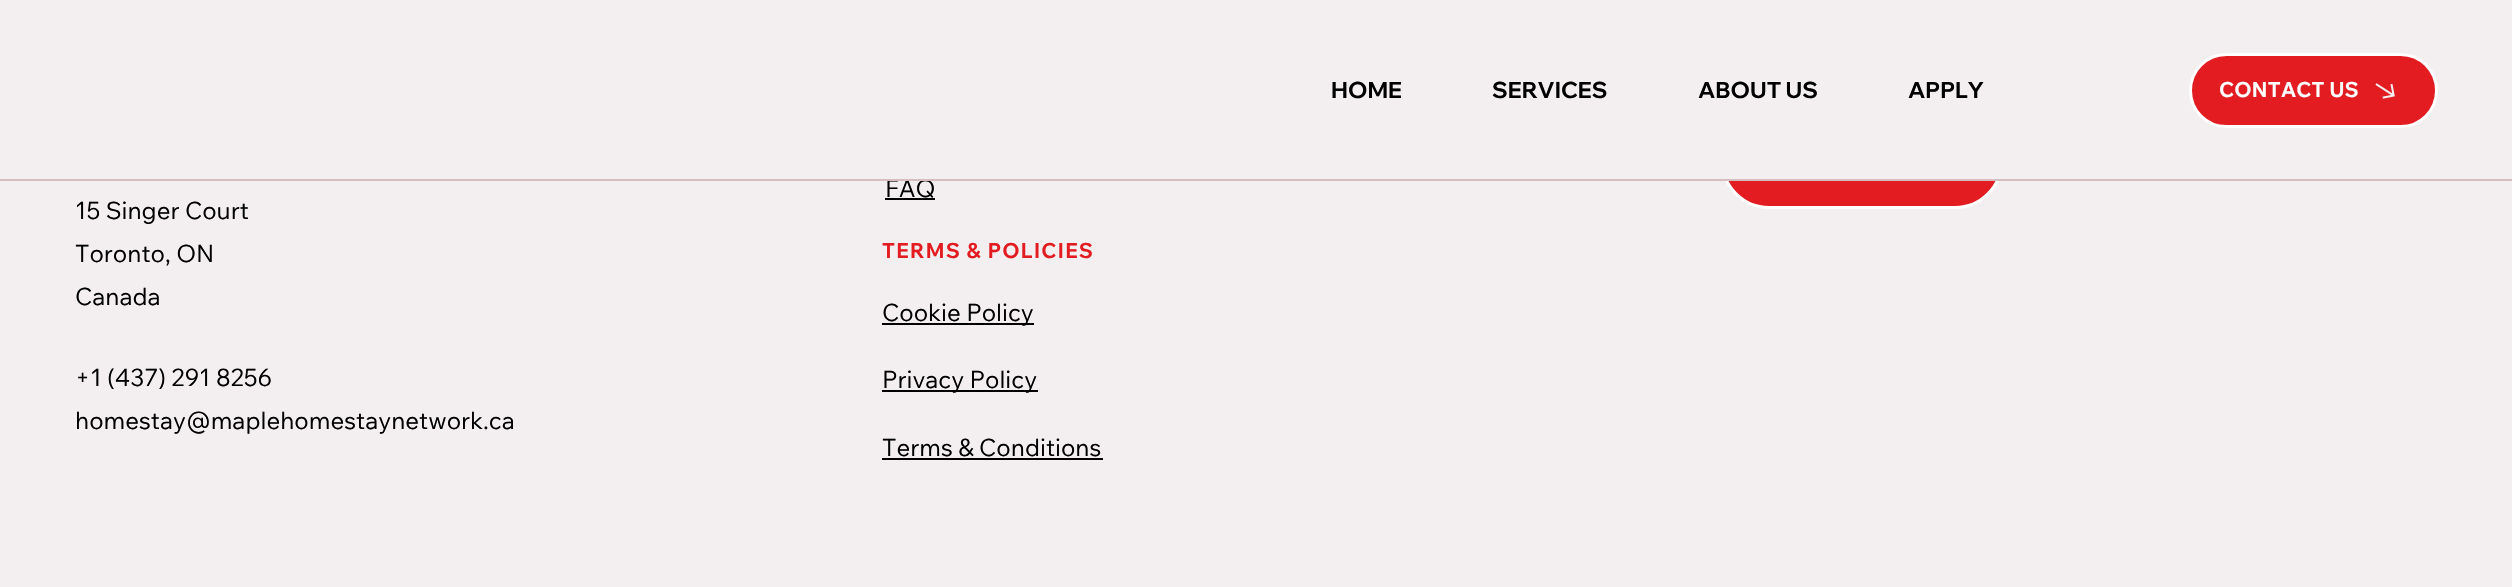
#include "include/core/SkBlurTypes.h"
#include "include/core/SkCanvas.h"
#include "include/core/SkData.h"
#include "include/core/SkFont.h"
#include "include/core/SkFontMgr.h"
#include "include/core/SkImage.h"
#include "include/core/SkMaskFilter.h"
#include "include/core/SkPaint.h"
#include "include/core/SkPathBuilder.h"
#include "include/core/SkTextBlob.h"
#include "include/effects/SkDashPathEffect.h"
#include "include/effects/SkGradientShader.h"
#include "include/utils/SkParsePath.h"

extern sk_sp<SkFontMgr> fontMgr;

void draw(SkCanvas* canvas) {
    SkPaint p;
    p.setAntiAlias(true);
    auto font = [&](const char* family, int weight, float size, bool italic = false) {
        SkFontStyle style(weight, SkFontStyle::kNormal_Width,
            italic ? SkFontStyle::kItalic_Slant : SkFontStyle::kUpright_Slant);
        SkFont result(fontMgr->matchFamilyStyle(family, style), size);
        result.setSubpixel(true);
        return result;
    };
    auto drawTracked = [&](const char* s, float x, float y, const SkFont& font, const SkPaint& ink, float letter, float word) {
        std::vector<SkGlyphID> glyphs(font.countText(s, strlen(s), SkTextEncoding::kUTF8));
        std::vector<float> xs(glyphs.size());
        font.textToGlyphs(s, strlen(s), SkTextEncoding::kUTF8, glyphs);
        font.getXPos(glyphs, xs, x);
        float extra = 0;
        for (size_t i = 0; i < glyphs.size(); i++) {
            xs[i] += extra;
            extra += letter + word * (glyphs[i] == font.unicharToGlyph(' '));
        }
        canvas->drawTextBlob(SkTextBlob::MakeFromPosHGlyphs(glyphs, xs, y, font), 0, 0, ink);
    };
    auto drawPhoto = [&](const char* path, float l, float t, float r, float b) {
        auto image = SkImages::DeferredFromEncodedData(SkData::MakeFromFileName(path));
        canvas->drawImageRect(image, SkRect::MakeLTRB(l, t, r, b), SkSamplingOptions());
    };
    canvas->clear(0xFFF3EFF0);
    p.setColor(0xFFE21C21);
    canvas->drawRoundRect(SkRect::MakeLTRB(1722.5f, 114.5f, 2001.5f, 207.5f), 46.5f, 46.5f, p);
    p.setStyle(SkPaint::kStroke_Style);
    p.setStrokeWidth(3);
    p.setColor(0xFFFFFFFF);
    canvas->drawRoundRect(SkRect::MakeLTRB(1722.5f, 114.5f, 2001.5f, 207.5f), 46.5f, 46.5f, p);
    p.setStyle(SkPaint::kFill_Style);
    p.setColor(0xFFF3EFF0);
    canvas->drawRect(SkRect::MakeLTRB(1721, 113, 2003, 179), p);
    auto font1 = font("Wix Madefor Display", 700, 22.5f);
    p.setColor(0xFF000000);
    {
        const struct { const char* s; float x, y; } items[] = {
            {"HOME", 1331, 98},
            {"SERVICES", 1492, 98},
            {"ABOUT US", 1698, 98},
            {"APPLY", 1908, 98},
        };
        for (auto [s, x, y] : items) {
            canvas->drawString(s, x, y, font1, p);
        }
    }
    p.setColor(0xFFE21C21);
    canvas->drawRoundRect(SkRect::MakeLTRB(2190.5f, 54.5f, 2436.5f, 126.5f), 36, 36, p);
    p.setStyle(SkPaint::kStroke_Style);
    p.setColor(0xFFFFFFFF);
    canvas->drawRoundRect(SkRect::MakeLTRB(2190.5f, 54.5f, 2436.5f, 126.5f), 36, 36, p);
    auto font2 = font("Wix Madefor Text", 700, 21);
    p.setStyle(SkPaint::kFill_Style);
    canvas->drawString("CONTACT US", 2219, 97, font2, p);
    drawPhoto("media/1.png", 2375, 83, 2395, 99);
    auto font3 = font("Wix Madefor Text", 400, 24);
    p.setColor(0xFF000000);
    canvas->drawString("FAQ", 885, 197, font3, p);
    p.setColor(0xFFD7BEBE);
    canvas->drawRect(SkRect::MakeLTRB(0, 179, 2512, 181), p);
    p.setColor(0xFF000000);
    {
        const struct { const char* s; float x, y; } items[] = {
            {"15 Singer Court", 75, 219},
            {"Toronto, ON", 75, 262},
            {"Canada", 75, 305},
            {"+1 (437) 291 8256", 75, 386},
            {"homestay@maplehomestaynetwork.ca", 75, 429},
        };
        for (auto [s, x, y] : items) {
            canvas->drawString(s, x, y, font3, p);
        }
    }
    canvas->drawRect(SkRect::MakeLTRB(885, 198, 935, 200), p);
    p.setColor(0xFFE21C21);
    drawTracked("TERMS & POLICIES", 882, 258, font2, p, 1, 0);
    p.setColor(0xFF000000);
    canvas->drawRect(SkRect::MakeLTRB(882, 323, 1034, 325), p);
    canvas->drawString("Cookie Policy", 882, 321, font3, p);
    canvas->drawRect(SkRect::MakeLTRB(882, 390, 1038, 392), p);
    canvas->drawString("Privacy Policy", 882, 388, font3, p);
    canvas->drawString("Terms & Conditions", 882, 456, font3, p);
    canvas->drawRect(SkRect::MakeLTRB(882, 458, 1103, 460), p);
}
